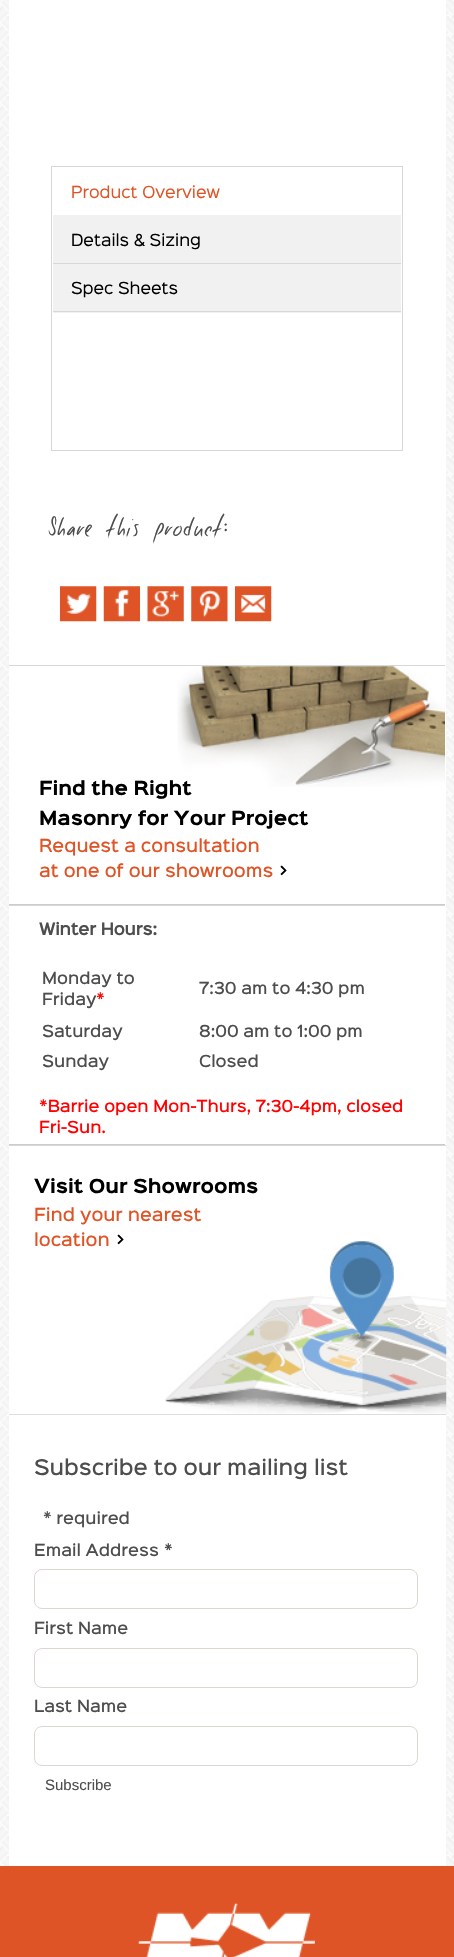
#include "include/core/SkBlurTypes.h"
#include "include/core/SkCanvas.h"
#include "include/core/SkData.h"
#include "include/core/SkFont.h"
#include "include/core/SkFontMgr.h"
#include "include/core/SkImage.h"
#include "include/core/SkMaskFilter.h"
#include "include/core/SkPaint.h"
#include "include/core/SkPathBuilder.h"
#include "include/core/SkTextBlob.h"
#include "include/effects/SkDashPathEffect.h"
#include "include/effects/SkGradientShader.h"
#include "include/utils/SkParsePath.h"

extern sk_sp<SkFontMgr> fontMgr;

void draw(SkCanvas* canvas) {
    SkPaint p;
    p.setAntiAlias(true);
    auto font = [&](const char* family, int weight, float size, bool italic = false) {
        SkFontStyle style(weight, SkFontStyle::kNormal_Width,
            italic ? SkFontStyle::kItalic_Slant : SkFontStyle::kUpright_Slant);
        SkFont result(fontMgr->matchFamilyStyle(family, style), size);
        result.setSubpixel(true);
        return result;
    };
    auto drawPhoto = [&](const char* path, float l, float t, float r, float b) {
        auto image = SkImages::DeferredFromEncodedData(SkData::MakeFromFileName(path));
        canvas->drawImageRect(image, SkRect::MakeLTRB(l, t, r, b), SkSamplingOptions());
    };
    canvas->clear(0xFFFFFFFF);
    drawPhoto("media/1.png", 0, 0, 454, 1866);
    p.setColor(0xFFFFFFFF);
    canvas->drawRect(SkRect::MakeLTRB(9, 0, 446, 1866), p);
    p.setStyle(SkPaint::kStroke_Style);
    p.setStrokeWidth(1);
    p.setColor(0xFFD7D7D7);
    canvas->drawRect(SkRect::MakeLTRB(51.5f, 166.5f, 402.5f, 450.5f), p);
    auto font1 = font("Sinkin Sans", 400, 15);
    p.setStyle(SkPaint::kFill_Style);
    p.setColor(0xFFDF5426);
    canvas->drawString("Product Overview", 71, 198, font1, p);
    p.setColor(0xFFF2F1F1);
    canvas->drawRect(SkRect::MakeLTRB(53, 215, 401, 263), p);
    p.setColor(0xFFD7D7D7);
    canvas->drawRect(SkRect::MakeLTRB(53, 263, 401, 264), p);
    p.setColor(0xFF000000);
    canvas->drawString("Details & Sizing", 71, 246, font1, p);
    p.setColor(0xFFF2F1F1);
    canvas->drawRect(SkRect::MakeLTRB(53, 264, 401, 313), p);
    p.setColor(0xFFD7D7D7);
    canvas->drawRect(SkRect::MakeLTRB(53, 311, 401, 312), p);
    p.setColor(0xFF000000);
    canvas->drawString("Spec Sheets", 71, 294, font1, p);
    auto font2 = font("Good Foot", 400, 27.5f);
    p.setColor(0xFF4D4D4D);
    canvas->drawString("Share this product:", 48, 535, font2, p);
    drawPhoto("media/2.png", 60, 586, 97, 622);
    drawPhoto("media/3.png", 103, 586, 140, 622);
    drawPhoto("media/4.png", 147, 586, 184, 622);
    drawPhoto("media/5.png", 191, 586, 228, 622);
    drawPhoto("media/6.png", 235, 586, 272, 622);
    drawPhoto("media/7.png", 177, 666, 445, 787);
    p.setColor(0xFFD7D7D7);
    canvas->drawRect(SkRect::MakeLTRB(9, 665, 445, 666), p);
    p.setColor(0xFFCCCCCC);
    canvas->drawRect(SkRect::MakeLTRB(9, 904, 445, 905), p);
    auto font3 = font("Sinkin Sans", 700, 17.5f);
    p.setColor(0xFF000000);
    canvas->drawString("Find the Right", 39, 795, font3, p);
    canvas->drawString("Masonry for Your Project", 39, 825, font3, p);
    auto font4 = font("Sinkin Sans", 500, 16.25f);
    p.setColor(0xFFDF5426);
    canvas->drawString("Request a consultation", 39, 852, font4, p);
    canvas->drawString("at one of our showrooms", 39, 877, font4, p);
    p.setColor(0xFF000000);
    canvas->drawString(">", 279, 877, font4, p);
    p.setColor(0xFFD7D7D7);
    canvas->drawRect(SkRect::MakeLTRB(9, 905, 445, 906), p);
    p.setColor(0xFFCCCCCC);
    canvas->drawRect(SkRect::MakeLTRB(9, 1144, 445, 1145), p);
    auto font5 = font("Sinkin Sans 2", 700, 15);
    p.setColor(0xFF4D4D4D);
    canvas->drawString("Winter Hours:", 39, 935, font5, p);
    auto font6 = font("Sinkin Sans", 500, 15);
    canvas->drawString("Monday to", 42, 984, font6, p);
    canvas->drawString("Friday", 42, 1005, font6, p);
    p.setColor(0xFFFF0000);
    canvas->drawString("*", 96, 1005, font6, p);
    p.setColor(0xFF4D4D4D);
    {
        const struct { const char* s; float x, y; } items[] = {
            {"7:30 am to 4:30 pm", 199, 994},
            {"Saturday", 42, 1037},
            {"8:00 am to 1:00 pm", 199, 1037},
            {"Sunday", 42, 1067},
            {"Closed", 199, 1067},
        };
        for (auto [s, x, y] : items) {
            canvas->drawString(s, x, y, font6, p);
        }
    }
    p.setColor(0xFFFF0000);
    canvas->drawString("*Barrie open Mon-Thurs, 7:30-4pm, closed", 39, 1112, font6, p);
    canvas->drawString("Fri-Sun.", 39, 1133, font6, p);
    p.setColor(0xFFD7D7D7);
    canvas->drawRect(SkRect::MakeLTRB(9, 1145, 446, 1146), p);
    drawPhoto("media/8.png", 165, 1241, 447, 1414);
    p.setColor(0xFFDDDDDD);
    canvas->drawRect(SkRect::MakeLTRB(9, 1414, 446, 1415), p);
    p.setColor(0xFF000000);
    canvas->drawString("Visit Our Showrooms", 34, 1193, font3, p);
    p.setColor(0xFFDF5426);
    canvas->drawString("Find your nearest", 34, 1221, font4, p);
    canvas->drawString("location", 34, 1246, font4, p);
    p.setColor(0xFF000000);
    canvas->drawString(">", 116, 1246, font4, p);
    auto font7 = font("Sinkin Sans", 500, 19.5f);
    p.setColor(0xFF4D4D4D);
    canvas->drawString("Subscribe to our mailing list", 34, 1475, font7, p);
    canvas->drawString("* required", 43, 1524, font6, p);
    canvas->drawString("Email Address", 34, 1556, font6, p);
    p.setColor(0xFF444444);
    canvas->drawString("*", 164, 1556, font6, p);
    p.setStyle(SkPaint::kStroke_Style);
    p.setColor(0xFFDCD7D1);
    canvas->drawRoundRect(SkRect::MakeLTRB(34.5f, 1569.5f, 417.5f, 1608.5f), 7.5f, 7.5f, p);
    p.setStyle(SkPaint::kFill_Style);
    p.setColor(0xFF4D4D4D);
    canvas->drawString("First Name", 34, 1634, font6, p);
    p.setStyle(SkPaint::kStroke_Style);
    p.setColor(0xFFDCD7D1);
    canvas->drawRoundRect(SkRect::MakeLTRB(34.5f, 1648.5f, 417.5f, 1687.5f), 7.5f, 7.5f, p);
    p.setStyle(SkPaint::kFill_Style);
    p.setColor(0xFF4D4D4D);
    canvas->drawString("Last Name", 34, 1712, font6, p);
    p.setStyle(SkPaint::kStroke_Style);
    p.setColor(0xFFDCD7D1);
    canvas->drawRoundRect(SkRect::MakeLTRB(34.5f, 1726.5f, 417.5f, 1765.5f), 7.5f, 7.5f, p);
    auto font8 = font("Liberation Sans", 400, 15);
    p.setStyle(SkPaint::kFill_Style);
    p.setColor(0xFF4D4D4D);
    canvas->drawString("Subscribe", 45, 1790, font8, p);
    p.setColor(0xFFDF5426);
    canvas->drawRect(SkRect::MakeLTRB(0, 1866, 454, 1957), p);
    drawPhoto("media/9.png", 138, 1903, 315, 1957);
}
